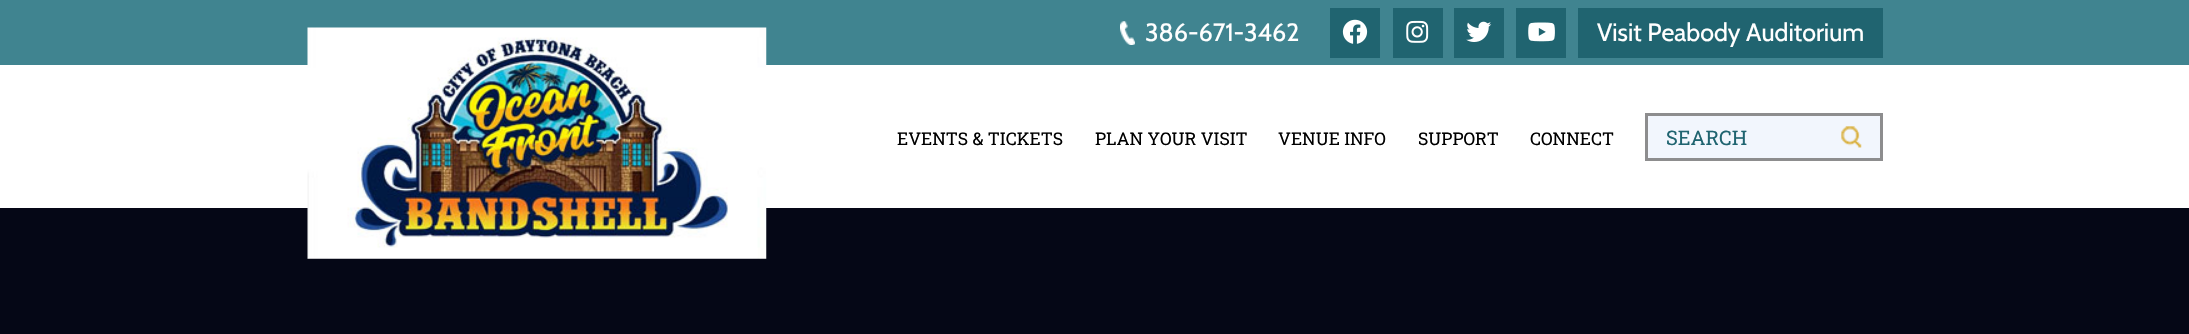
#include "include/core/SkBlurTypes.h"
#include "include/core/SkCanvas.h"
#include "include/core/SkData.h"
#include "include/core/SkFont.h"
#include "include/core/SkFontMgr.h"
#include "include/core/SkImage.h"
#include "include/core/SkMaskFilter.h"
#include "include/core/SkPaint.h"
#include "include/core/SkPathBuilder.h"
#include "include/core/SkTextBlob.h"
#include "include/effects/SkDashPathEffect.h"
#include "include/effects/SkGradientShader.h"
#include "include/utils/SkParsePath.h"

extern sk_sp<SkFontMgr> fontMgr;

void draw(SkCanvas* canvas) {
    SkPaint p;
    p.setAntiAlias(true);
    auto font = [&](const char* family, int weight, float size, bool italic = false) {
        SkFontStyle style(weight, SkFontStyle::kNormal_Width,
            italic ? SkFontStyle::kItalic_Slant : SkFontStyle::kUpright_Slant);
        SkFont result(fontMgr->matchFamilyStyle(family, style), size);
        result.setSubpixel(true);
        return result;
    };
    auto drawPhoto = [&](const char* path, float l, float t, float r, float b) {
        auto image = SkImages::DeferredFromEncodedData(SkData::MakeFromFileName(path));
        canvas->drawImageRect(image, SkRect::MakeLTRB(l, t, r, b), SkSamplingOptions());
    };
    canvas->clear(0xFFFFFFFF);
    p.setColor(0xFF408490);
    canvas->drawRect(SkRect::MakeLTRB(0, 0, 2189, 65), p);
    drawPhoto("media/1.png", 1120, 21, 1135, 45);
    auto font1 = font("Cabin", 400, 25);
    p.setColor(0xFFFFFFFF);
    canvas->drawString("386-671-3462", 1145, 41, font1, p);
    p.setColor(0xFF206470);
    canvas->drawRect(SkRect::MakeLTRB(1330, 8, 1380, 58), p);
    drawPhoto("media/2.png", 1342, 19, 1368, 44);
    canvas->drawRect(SkRect::MakeLTRB(1393, 8, 1443, 58), p);
    drawPhoto("media/3.png", 1406, 20, 1429, 43);
    canvas->drawRect(SkRect::MakeLTRB(1454, 8, 1504, 58), p);
    drawPhoto("media/4.png", 1466, 21, 1492, 42);
    canvas->drawRect(SkRect::MakeLTRB(1516, 8, 1566, 58), p);
    drawPhoto("media/5.png", 1528, 22, 1555, 42);
    canvas->drawRect(SkRect::MakeLTRB(1578, 8, 1883, 58), p);
    p.setColor(0xFFFFFFFF);
    canvas->drawString("Visit Peabody Auditorium", 1597, 41, font1, p);
    p.setColor(0xFF050716);
    canvas->drawRect(SkRect::MakeLTRB(0, 208, 2189, 334), p);
    drawPhoto("media/6.png", 307, 27, 767, 259);
    auto font2 = font("Roboto Slab", 400, 17.5f);
    p.setColor(0xFF000000);
    {
        const struct { const char* s; float x, y; } items[] = {
            {"EVENTS & TICKETS", 897, 145},
            {"PLAN YOUR VISIT", 1095, 145},
            {"VENUE INFO", 1278, 145},
            {"SUPPORT", 1418, 145},
            {"CONNECT", 1530, 145},
        };
        for (auto [s, x, y] : items) {
            canvas->drawString(s, x, y, font2, p);
        }
    }
    p.setColor(0xFFF2F6FD);
    canvas->drawRect(SkRect::MakeLTRB(1646.5f, 114.5f, 1881.5f, 159.5f), p);
    p.setStyle(SkPaint::kStroke_Style);
    p.setStrokeWidth(3);
    p.setColor(0xFF8D8D8E);
    canvas->drawRect(SkRect::MakeLTRB(1646.5f, 114.5f, 1881.5f, 159.5f), p);
    auto font3 = font("Roboto Slab", 400, 20);
    p.setStyle(SkPaint::kFill_Style);
    p.setColor(0xFF206470);
    canvas->drawString("SEARCH", 1666, 145, font3, p);
    drawPhoto("media/7.png", 1841, 126, 1862, 148);
}
